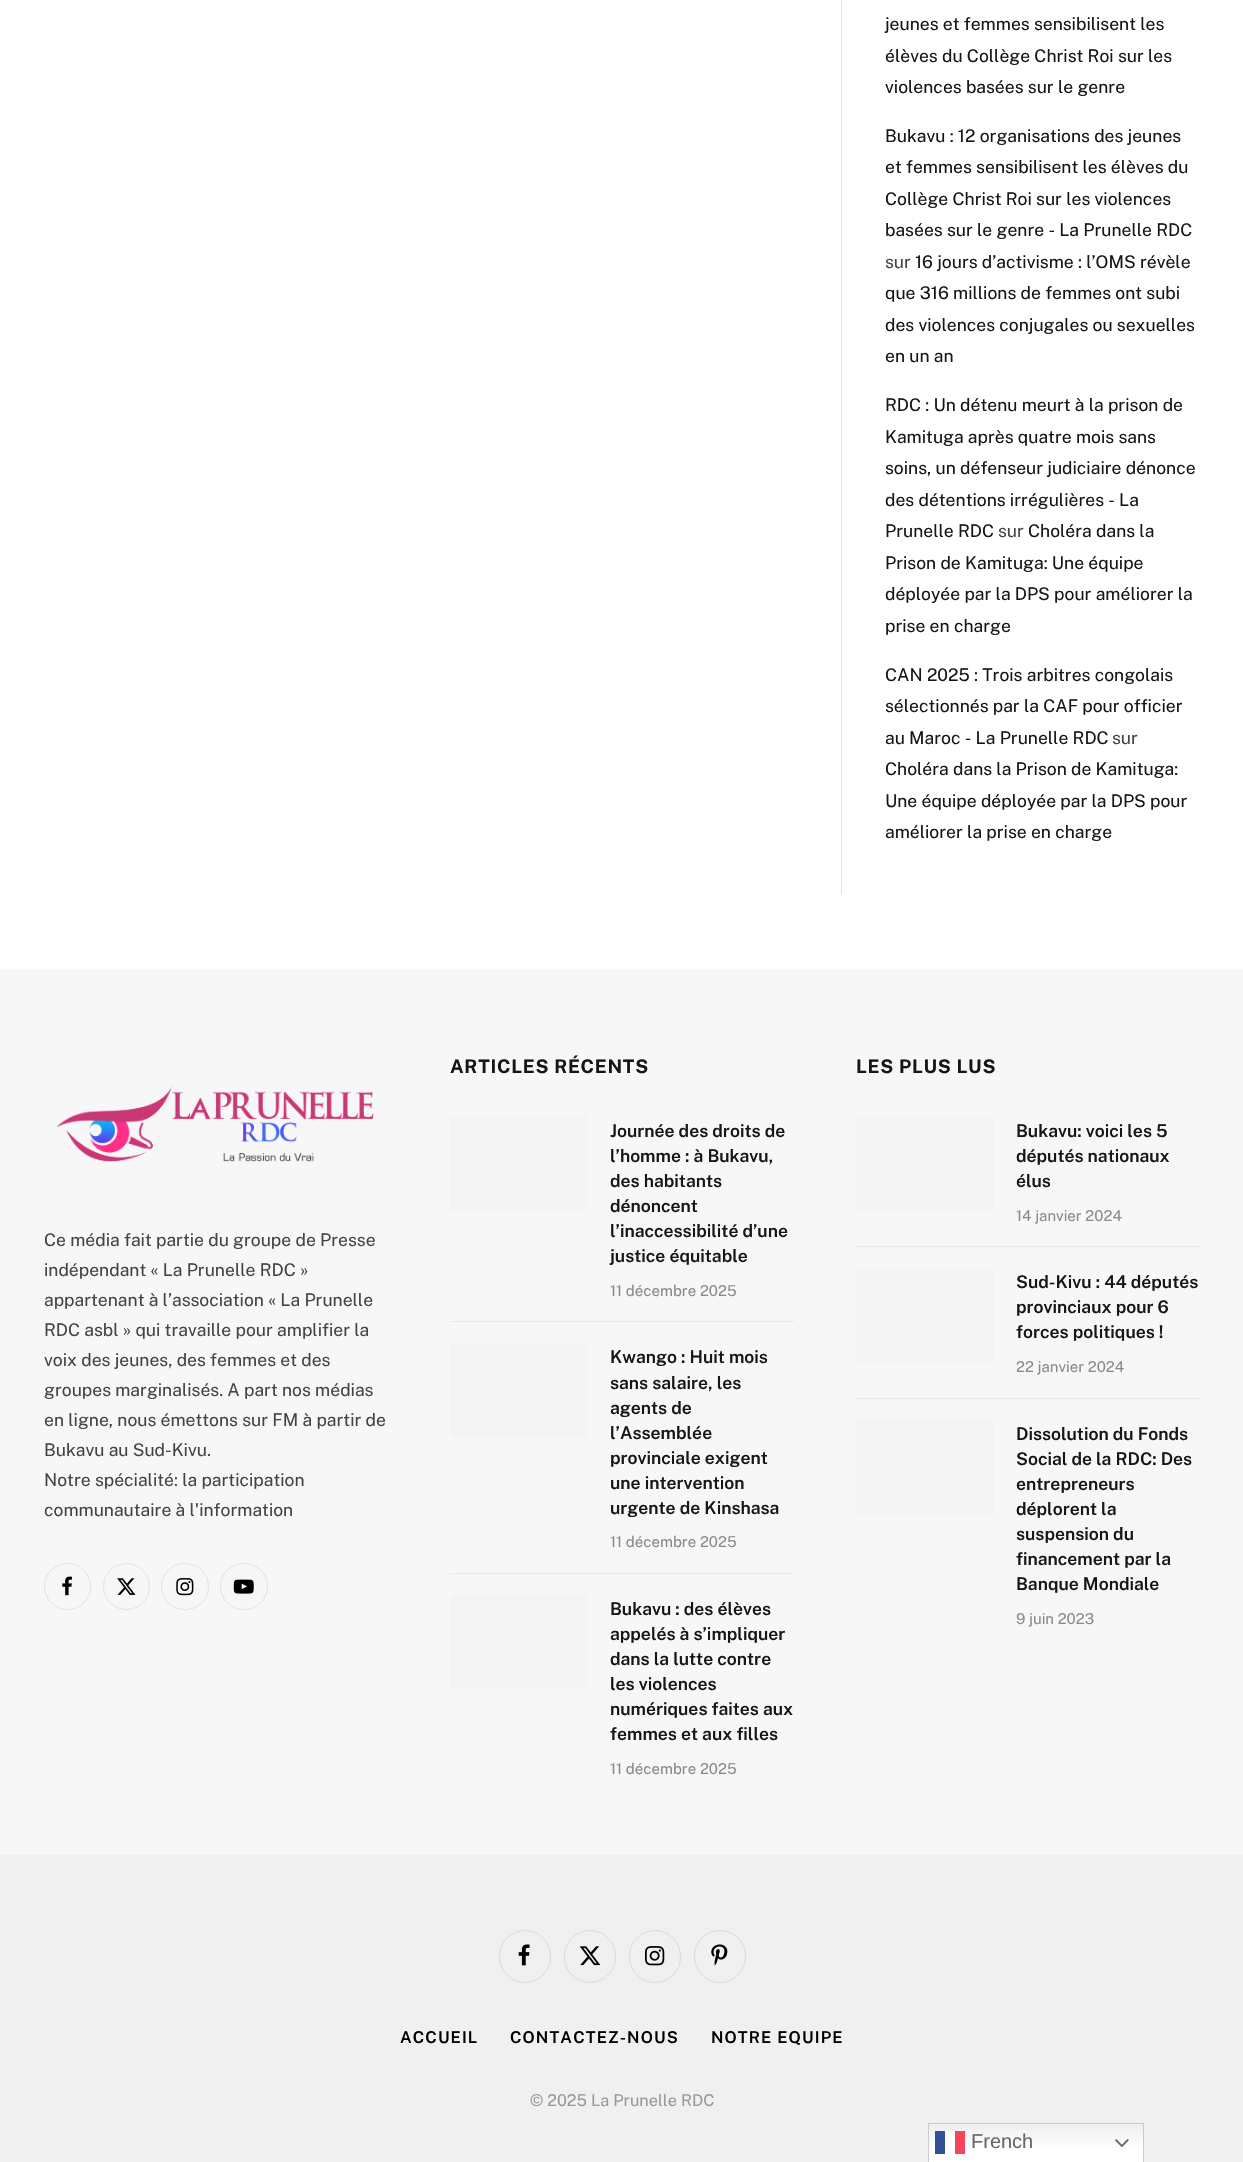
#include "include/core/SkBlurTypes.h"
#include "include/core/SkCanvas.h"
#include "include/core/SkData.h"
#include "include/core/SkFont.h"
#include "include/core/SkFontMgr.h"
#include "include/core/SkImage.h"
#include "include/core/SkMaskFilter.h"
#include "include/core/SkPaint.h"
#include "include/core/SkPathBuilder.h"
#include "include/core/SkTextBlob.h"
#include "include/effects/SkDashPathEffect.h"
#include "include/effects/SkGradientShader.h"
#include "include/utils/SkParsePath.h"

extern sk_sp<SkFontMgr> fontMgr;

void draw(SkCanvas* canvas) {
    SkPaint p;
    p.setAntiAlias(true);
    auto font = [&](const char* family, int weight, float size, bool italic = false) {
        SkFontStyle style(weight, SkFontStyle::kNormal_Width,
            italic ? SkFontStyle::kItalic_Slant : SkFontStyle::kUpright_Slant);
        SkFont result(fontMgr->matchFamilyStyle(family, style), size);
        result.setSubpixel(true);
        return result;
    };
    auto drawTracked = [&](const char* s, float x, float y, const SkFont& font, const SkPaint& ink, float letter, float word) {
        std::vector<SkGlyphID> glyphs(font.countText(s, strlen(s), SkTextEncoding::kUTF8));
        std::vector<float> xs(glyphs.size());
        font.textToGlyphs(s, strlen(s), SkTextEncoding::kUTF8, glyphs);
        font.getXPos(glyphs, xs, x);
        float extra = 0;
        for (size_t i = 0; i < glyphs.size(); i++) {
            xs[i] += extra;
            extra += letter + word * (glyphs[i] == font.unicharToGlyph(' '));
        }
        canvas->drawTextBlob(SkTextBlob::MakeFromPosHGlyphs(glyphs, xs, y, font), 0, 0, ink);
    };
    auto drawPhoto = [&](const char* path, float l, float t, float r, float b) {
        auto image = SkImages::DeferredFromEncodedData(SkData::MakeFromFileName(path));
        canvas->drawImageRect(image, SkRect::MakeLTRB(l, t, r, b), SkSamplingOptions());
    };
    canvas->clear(0xFFFFFFFF);
    p.setColor(0xFFE2E2E2);
    canvas->drawRect(SkRect::MakeLTRB(841, 0, 842, 894), p);
    auto font1 = font("Public Sans", 400, 17.5f);
    p.setColor(0xFF161616);
    {
        const struct { const char* s; float x, y; } items[] = {
            {"jeunes et femmes sensibilisent les", 885, 30},
            {"élèves du Collège Christ Roi sur les", 885, 62},
            {"violences basées sur le genre", 885, 93},
            {"Bukavu : 12 organisations des jeunes", 885, 142},
            {"et femmes sensibilisent les élèves du", 885, 173},
            {"Collège Christ Roi sur les violences", 885, 205},
            {"basées sur le genre - La Prunelle RDC", 885, 236},
        };
        for (auto [s, x, y] : items) {
            canvas->drawString(s, x, y, font1, p);
        }
    }
    p.setColor(0xFF444444);
    canvas->drawString("sur", 885, 268, font1, p);
    p.setColor(0xFF161616);
    {
        const struct { const char* s; float x, y; } items[] = {
            {"16 jours d’activisme : l’OMS révèle", 915, 268},
            {"que 316 millions de femmes ont subi", 885, 299},
            {"des violences conjugales ou sexuelles", 885, 331},
            {"en un an", 885, 362},
            {"RDC : Un détenu meurt à la prison de", 885, 411},
            {"Kamituga après quatre mois sans", 885, 443},
            {"soins, un défenseur judiciaire dénonce", 885, 474},
            {"des détentions irrégulières - La", 885, 506},
            {"Prunelle RDC", 885, 537},
        };
        for (auto [s, x, y] : items) {
            canvas->drawString(s, x, y, font1, p);
        }
    }
    p.setColor(0xFF444444);
    canvas->drawString("sur", 998, 537, font1, p);
    p.setColor(0xFF161616);
    {
        const struct { const char* s; float x, y; } items[] = {
            {"Choléra dans la", 1028, 537},
            {"Prison de Kamituga: Une équipe", 885, 569},
            {"déployée par la DPS pour améliorer la", 885, 600},
            {"prise en charge", 885, 632},
            {"CAN 2025 : Trois arbitres congolais", 885, 681},
            {"sélectionnés par la CAF pour officier", 885, 712},
            {"au Maroc - La Prunelle RDC", 885, 744},
        };
        for (auto [s, x, y] : items) {
            canvas->drawString(s, x, y, font1, p);
        }
    }
    p.setColor(0xFF444444);
    canvas->drawString("sur", 1112, 744, font1, p);
    p.setColor(0xFF161616);
    {
        const struct { const char* s; float x, y; } items[] = {
            {"Choléra dans la Prison de Kamituga:", 885, 775},
            {"Une équipe déployée par la DPS pour", 885, 807},
            {"améliorer la prise en charge", 885, 838},
        };
        for (auto [s, x, y] : items) {
            canvas->drawString(s, x, y, font1, p);
        }
    }
    p.setColor(0xFFF7F7F7);
    canvas->drawRect(SkRect::MakeLTRB(0, 969, 1243, 1855), p);
    drawPhoto("media/1.png", 56, 1087, 374, 1162);
    p.setColor(0xFF444444);
    {
        const struct { const char* s; float x, y; } items[] = {
            {"Ce média fait partie du groupe de Presse", 44, 1246},
            {"indépendant « La Prunelle RDC »", 44, 1276},
            {"appartenant à l’association « La Prunelle", 44, 1306},
            {"RDC asbl » qui travaille pour amplifier la", 44, 1336},
            {"voix des jeunes, des femmes et des", 44, 1366},
            {"groupes marginalisés. A part nos médias", 44, 1396},
            {"en ligne, nous émettons sur FM à partir de", 44, 1426},
            {"Bukavu au Sud-Kivu.", 44, 1456},
            {"Notre spécialité: la participation", 44, 1486},
            {"communautaire à l'information", 44, 1516},
        };
        for (auto [s, x, y] : items) {
            canvas->drawString(s, x, y, font1, p);
        }
    }
    p.setStyle(SkPaint::kStroke_Style);
    p.setStrokeWidth(1);
    p.setColor(0xFFE1E1E1);
    canvas->drawCircle(67.5f, 1586.5f, 23, p);
    drawPhoto("media/2.png", 62, 1576, 72, 1596);
    canvas->drawCircle(126.5f, 1586.5f, 23, p);
    drawPhoto("media/3.png", 117, 1578, 136, 1595);
    canvas->drawRoundRect(SkRect::MakeLTRB(161.5f, 1563.5f, 208.5f, 1609.5f), 23, 23, p);
    drawPhoto("media/4.png", 176, 1578, 194, 1596);
    canvas->drawRoundRect(SkRect::MakeLTRB(220.5f, 1563.5f, 267.5f, 1609.5f), 23, 23, p);
    drawPhoto("media/5.png", 233, 1579, 254, 1594);
    auto font2 = font("Public Sans", 700, 18.75f);
    p.setStyle(SkPaint::kFill_Style);
    p.setColor(0xFF161616);
    drawTracked("ARTICLES RÉCENTS", 450, 1073, font2, p, 0.75f, 0);
    p.setColor(0xFFF4F4F4);
    canvas->drawRect(SkRect::MakeLTRB(450, 1116, 588, 1211), p);
    auto font3 = font("Public Sans", 600, 17.5f);
    p.setColor(0xFF161616);
    {
        const struct { const char* s; float x, y; } items[] = {
            {"Journée des droits de", 610, 1137},
            {"l’homme : à Bukavu,", 610, 1162},
            {"des habitants", 610, 1187},
            {"dénoncent", 610, 1212},
            {"l’inaccessibilité d’une", 610, 1237},
            {"justice équitable", 610, 1262},
        };
        for (auto [s, x, y] : items) {
            canvas->drawString(s, x, y, font3, p);
        }
    }
    auto font4 = font("Public Sans", 400, 15);
    p.setColor(0xFF8A8A8A);
    canvas->drawString("11 décembre 2025", 610, 1296, font4, p);
    p.setColor(0xFFE8E8E8);
    canvas->drawRect(SkRect::MakeLTRB(450, 1321, 794, 1322), p);
    p.setColor(0xFFF4F4F4);
    canvas->drawRect(SkRect::MakeLTRB(450, 1343, 588, 1438), p);
    p.setColor(0xFF161616);
    {
        const struct { const char* s; float x, y; } items[] = {
            {"Kwango : Huit mois", 610, 1363},
            {"sans salaire, les", 610, 1389},
            {"agents de", 610, 1414},
            {"l’Assemblée", 610, 1439},
            {"provinciale exigent", 610, 1464},
            {"une intervention", 610, 1489},
            {"urgente de Kinshasa", 610, 1514},
        };
        for (auto [s, x, y] : items) {
            canvas->drawString(s, x, y, font3, p);
        }
    }
    p.setColor(0xFF8A8A8A);
    canvas->drawString("11 décembre 2025", 610, 1547, font4, p);
    p.setColor(0xFFE8E8E8);
    canvas->drawRect(SkRect::MakeLTRB(450, 1573, 794, 1574), p);
    p.setColor(0xFFF4F4F4);
    canvas->drawRect(SkRect::MakeLTRB(450, 1594, 588, 1689), p);
    p.setColor(0xFF161616);
    {
        const struct { const char* s; float x, y; } items[] = {
            {"Bukavu : des élèves", 610, 1615},
            {"appelés à s’impliquer", 610, 1640},
            {"dans la lutte contre", 610, 1665},
            {"les violences", 610, 1690},
            {"numériques faites aux", 610, 1715},
            {"femmes et aux filles", 610, 1740},
        };
        for (auto [s, x, y] : items) {
            canvas->drawString(s, x, y, font3, p);
        }
    }
    p.setColor(0xFF8A8A8A);
    canvas->drawString("11 décembre 2025", 610, 1774, font4, p);
    p.setColor(0xFF161616);
    drawTracked("LES PLUS LUS", 856, 1073, font2, p, 0.75f, 0);
    p.setColor(0xFFF4F4F4);
    canvas->drawRect(SkRect::MakeLTRB(856, 1116, 994, 1211), p);
    p.setColor(0xFF161616);
    {
        const struct { const char* s; float x, y; } items[] = {
            {"Bukavu: voici les 5", 1016, 1137},
            {"députés nationaux", 1016, 1162},
            {"élus", 1016, 1187},
        };
        for (auto [s, x, y] : items) {
            canvas->drawString(s, x, y, font3, p);
        }
    }
    p.setColor(0xFF8A8A8A);
    canvas->drawString("14 janvier 2024", 1016, 1221, font4, p);
    p.setColor(0xFFE8E8E8);
    canvas->drawRect(SkRect::MakeLTRB(856, 1246, 1200, 1247), p);
    p.setColor(0xFFF4F4F4);
    canvas->drawRect(SkRect::MakeLTRB(856, 1268, 994, 1363), p);
    p.setColor(0xFF161616);
    {
        const struct { const char* s; float x, y; } items[] = {
            {"Sud-Kivu : 44 députés", 1016, 1288},
            {"provinciaux pour 6", 1016, 1313},
            {"forces politiques !", 1016, 1338},
        };
        for (auto [s, x, y] : items) {
            canvas->drawString(s, x, y, font3, p);
        }
    }
    p.setColor(0xFF8A8A8A);
    canvas->drawString("22 janvier 2024", 1016, 1372, font4, p);
    p.setColor(0xFFE8E8E8);
    canvas->drawRect(SkRect::MakeLTRB(856, 1398, 1200, 1399), p);
    p.setColor(0xFFF4F4F4);
    canvas->drawRect(SkRect::MakeLTRB(856, 1419, 994, 1514), p);
    p.setColor(0xFF161616);
    {
        const struct { const char* s; float x, y; } items[] = {
            {"Dissolution du Fonds", 1016, 1440},
            {"Social de la RDC: Des", 1016, 1465},
            {"entrepreneurs", 1016, 1490},
            {"déplorent la", 1016, 1515},
            {"suspension du", 1016, 1540},
            {"financement par la", 1016, 1565},
            {"Banque Mondiale", 1016, 1590},
        };
        for (auto [s, x, y] : items) {
            canvas->drawString(s, x, y, font3, p);
        }
    }
    p.setColor(0xFF8A8A8A);
    canvas->drawString("9 juin 2023", 1016, 1624, font4, p);
    p.setColor(0xFFF0F0F0);
    canvas->drawRect(SkRect::MakeLTRB(0, 1855, 1243, 2162), p);
    p.setStyle(SkPaint::kStroke_Style);
    p.setColor(0xFFDADADA);
    canvas->drawRoundRect(SkRect::MakeLTRB(499.5f, 1930.5f, 550.5f, 1982.5f), 25.5f, 25.5f, p);
    drawPhoto("media/6.png", 518, 1944, 530, 1966);
    canvas->drawRoundRect(SkRect::MakeLTRB(564.5f, 1930.5f, 615.5f, 1982.5f), 25.5f, 25.5f, p);
    drawPhoto("media/7.png", 579, 1946, 601, 1966);
    canvas->drawRoundRect(SkRect::MakeLTRB(629.5f, 1930.5f, 680.5f, 1982.5f), 25.5f, 25.5f, p);
    drawPhoto("media/8.png", 645, 1946, 665, 1966);
    canvas->drawRoundRect(SkRect::MakeLTRB(694.5f, 1930.5f, 745.5f, 1982.5f), 25.5f, 25.5f, p);
    drawPhoto("media/9.png", 711, 1944, 728, 1966);
    auto font5 = font("Public Sans", 600, 16.25f);
    p.setStyle(SkPaint::kFill_Style);
    p.setColor(0xFF000000);
    {
        const struct { const char* s; float x, y; } items[] = {
            {"ACCUEIL", 400, 2043},
            {"CONTACTEZ-NOUS", 510, 2043},
            {"NOTRE EQUIPE", 711, 2043},
        };
        for (auto [s, x, y] : items) {
            drawTracked(s, x, y, font5, p, 1.1f, 0);
        }
    }
    auto font6 = font("Public Sans", 400, 16.25f);
    p.setColor(0xFF999999);
    canvas->drawString("© 2025 La Prunelle RDC", 530, 2106, font6, p);
    {
        const SkColor colors[] = {0xFFEFEFEF, 0xFFFFFFFF};
        const float stops[] = {0, 0.7f};
        const SkPoint ends[] = {{1036, 2123}, {1036, 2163}};
        p.setShader(SkGradientShader::MakeLinear(ends, colors, stops, 2, SkTileMode::kClamp));
        p.setAlpha(255);
    }
    canvas->drawRect(SkRect::MakeLTRB(929, 2129, 1143, 2162), p);
    {
        const SkColor colors[] = {0xFFFCFCFC, 0xFFFFFFFF};
        const float stops[] = {0, 0.7f};
        const SkPoint ends[] = {{1036, 2123}, {1036, 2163}};
        p.setShader(SkGradientShader::MakeLinear(ends, colors, stops, 2, SkTileMode::kClamp));
        p.setAlpha(255);
    }
    canvas->drawRect(SkRect::MakeLTRB(945, 2131, 955, 2147), p);
    p.setStyle(SkPaint::kStroke_Style);
    p.setShader(nullptr);
    p.setColor(0xFFCCCCCC);
    canvas->drawRect(SkRect::MakeLTRB(928.5f, 2123.5f, 1143.5f, 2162.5f), p);
    p.setStyle(SkPaint::kFill_Style);
    p.setColor(0xFF335198);
    canvas->drawRect(SkRect::MakeLTRB(935, 2131, 945, 2154), p);
    p.setColor(0xFFF54659);
    canvas->drawRect(SkRect::MakeLTRB(955, 2131, 965, 2154), p);
    auto font7 = font("Liberation Sans", 400, 20);
    p.setColor(0xFF666666);
    canvas->drawString("French", 971, 2148, font7, p);
    drawPhoto("media/10.png", 1115, 2139, 1129, 2148);
}
